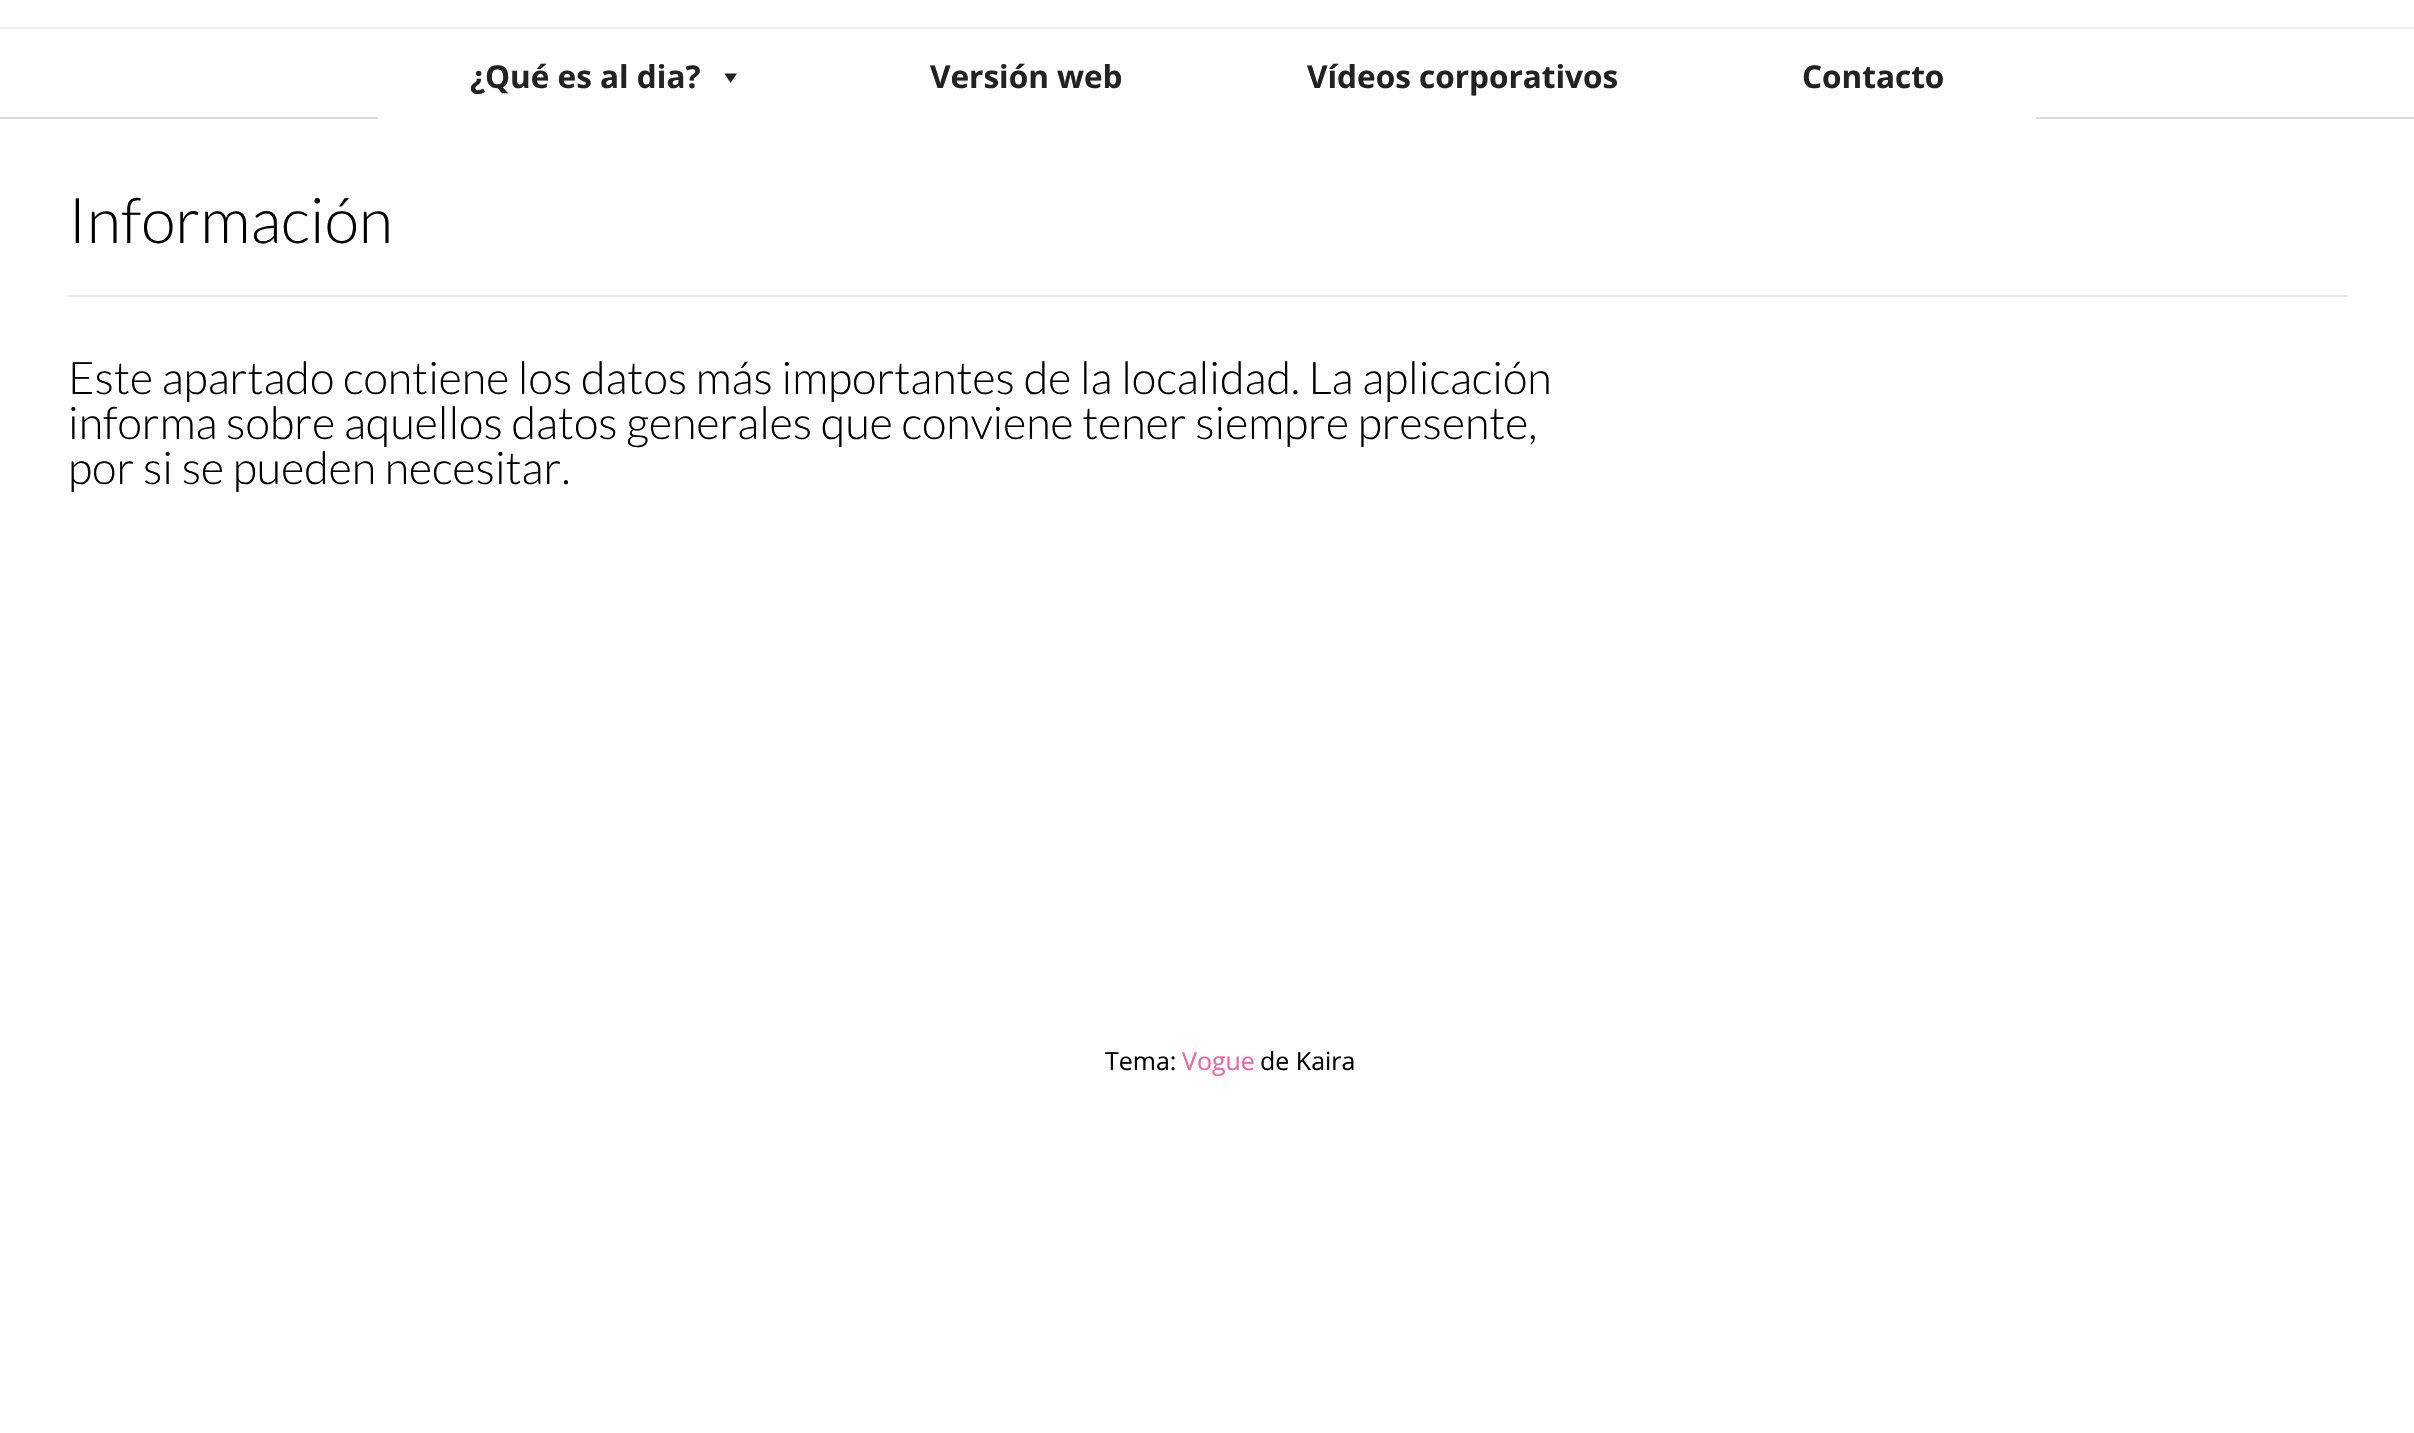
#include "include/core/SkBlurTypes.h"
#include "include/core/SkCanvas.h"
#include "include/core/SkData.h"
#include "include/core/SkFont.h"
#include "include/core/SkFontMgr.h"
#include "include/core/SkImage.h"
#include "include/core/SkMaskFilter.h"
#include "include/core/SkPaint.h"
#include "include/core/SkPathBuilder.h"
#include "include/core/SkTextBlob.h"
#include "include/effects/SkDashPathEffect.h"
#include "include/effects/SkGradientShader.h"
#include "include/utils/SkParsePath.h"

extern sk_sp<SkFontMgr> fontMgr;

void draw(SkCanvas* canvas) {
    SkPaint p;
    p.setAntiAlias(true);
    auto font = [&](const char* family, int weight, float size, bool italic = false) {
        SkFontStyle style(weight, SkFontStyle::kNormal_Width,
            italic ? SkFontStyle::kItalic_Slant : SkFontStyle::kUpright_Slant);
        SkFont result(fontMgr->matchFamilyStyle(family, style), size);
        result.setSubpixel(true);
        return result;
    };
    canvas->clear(0xFFFFFFFF);
    {
        const struct { float l, t, r, b; SkColor color; } items[] = {
            {0, 117, 2414, 119, 0xFFDBDBDB},
            {0, 27, 2414, 29, 0xFFEFEFEF},
            {378, 117, 2036, 119, 0xFFFFFFFF},
        };
        for (auto [l, t, r, b, color] : items) {
            p.setColor(color);
            canvas->drawRect(SkRect::MakeLTRB(l, t, r, b), p);
        }
    }
    auto font1 = font("Open Sans", 700, 31.5f);
    p.setColor(0xFF222222);
    canvas->drawString("¿Qué es al dia?", 470, 88, font1, p);
    canvas->drawPath(SkPathBuilder().moveTo(737, 73.5f).lineTo(730.5f, 83).lineTo(724.5f, 73.5f).close().detach(), p);
    {
        const struct { const char* s; float x, y; } items[] = {
            {"Versión web", 930, 88},
            {"Vídeos corporativos", 1307, 88},
            {"Contacto", 1802, 88},
        };
        for (auto [s, x, y] : items) {
            canvas->drawString(s, x, y, font1, p);
        }
    }
    p.setColor(0xFFEBEBEB);
    canvas->drawRect(SkRect::MakeLTRB(68, 295, 2347, 297), p);
    auto font2 = font("Lato", 300, 63);
    p.setColor(0xFF000000);
    canvas->drawString("Información", 68, 243, font2, p);
    auto font3 = font("Lato", 300, 45);
    {
        const struct { const char* s; float x, y; } items[] = {
            {"Este apartado contiene los datos más importantes de la localidad. La aplicación", 68, 394},
            {"informa sobre aquellos datos generales que conviene tener siempre presente,", 68, 439},
            {"por si se pueden necesitar.", 68, 484},
        };
        for (auto [s, x, y] : items) {
            canvas->drawString(s, x, y, font3, p);
        }
    }
    auto font4 = font("Open Sans", 400, 25);
    canvas->drawString("Tema:", 1105, 1070, font4, p);
    p.setColor(0xFFF061A8);
    canvas->drawString("Vogue", 1182, 1070, font4, p);
    p.setColor(0xFF000000);
    canvas->drawString("de Kaira", 1260, 1070, font4, p);
}
